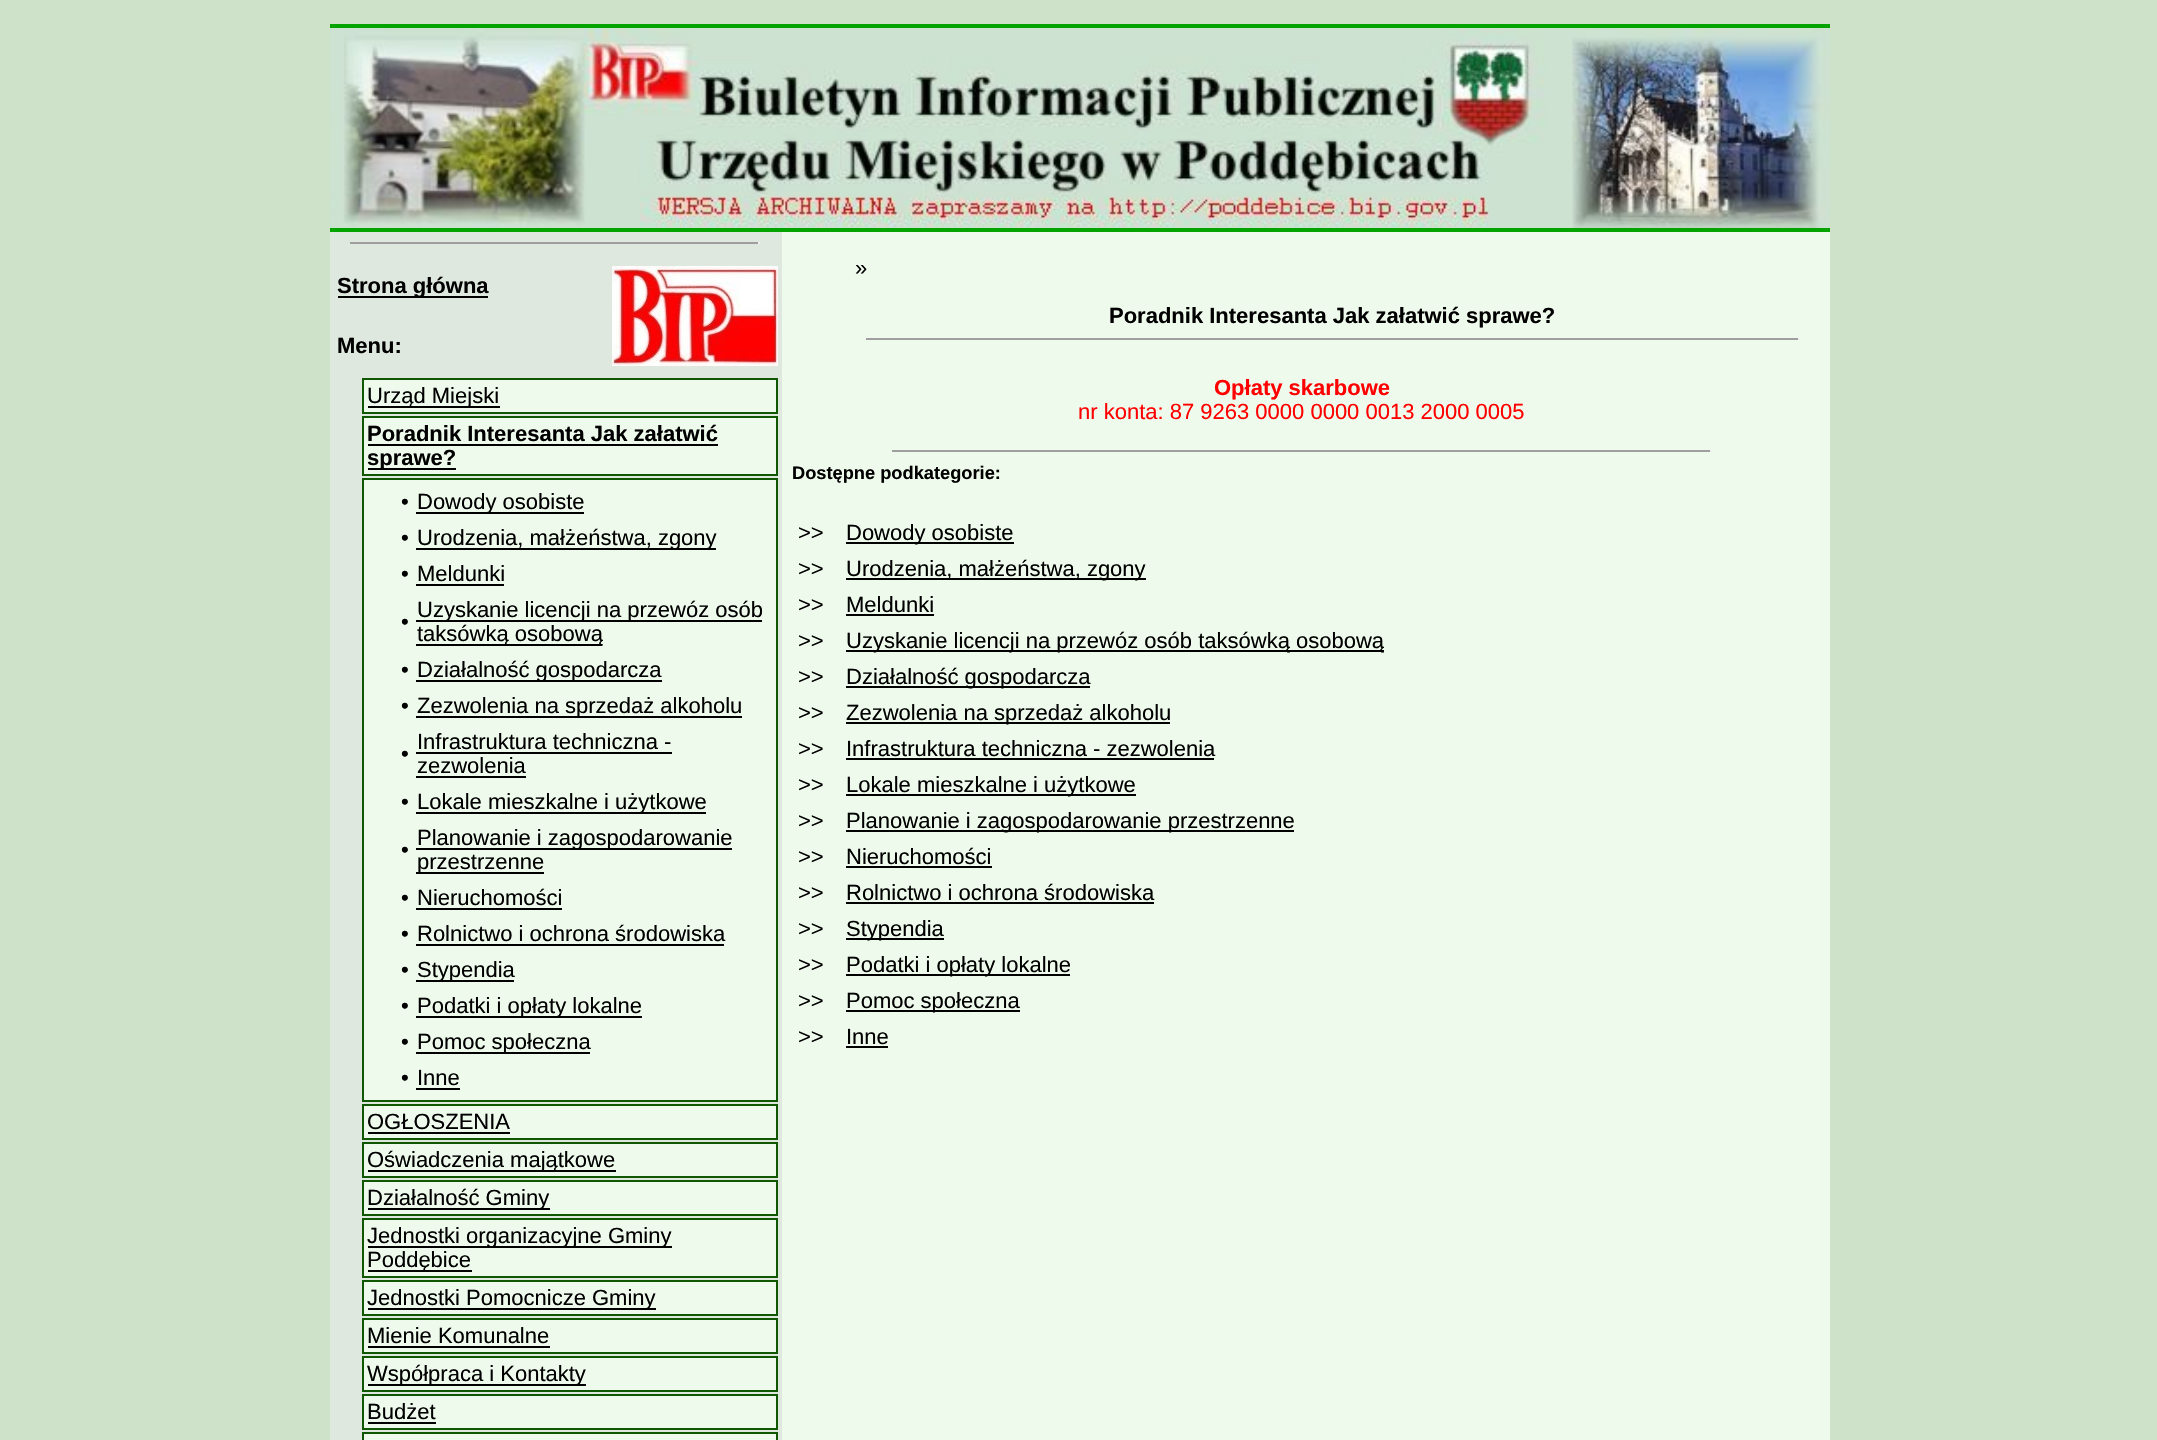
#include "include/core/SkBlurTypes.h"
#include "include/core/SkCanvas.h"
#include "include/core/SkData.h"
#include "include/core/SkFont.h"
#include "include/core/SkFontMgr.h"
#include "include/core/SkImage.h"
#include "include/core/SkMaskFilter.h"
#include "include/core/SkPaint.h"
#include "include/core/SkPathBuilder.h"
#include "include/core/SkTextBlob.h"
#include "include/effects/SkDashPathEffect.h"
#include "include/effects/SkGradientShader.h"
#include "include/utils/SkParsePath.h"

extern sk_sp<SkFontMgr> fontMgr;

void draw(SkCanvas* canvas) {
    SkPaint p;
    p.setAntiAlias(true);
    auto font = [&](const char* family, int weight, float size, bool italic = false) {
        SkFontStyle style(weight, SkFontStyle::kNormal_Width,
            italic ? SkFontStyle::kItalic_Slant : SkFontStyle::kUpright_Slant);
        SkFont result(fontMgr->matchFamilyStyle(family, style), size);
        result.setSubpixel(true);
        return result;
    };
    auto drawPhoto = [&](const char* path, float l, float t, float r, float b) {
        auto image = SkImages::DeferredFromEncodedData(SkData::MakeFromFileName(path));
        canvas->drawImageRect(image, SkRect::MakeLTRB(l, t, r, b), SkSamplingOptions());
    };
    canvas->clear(0xFFCDE2C9);
    p.setColor(0xFF03A300);
    canvas->drawRect(SkRect::MakeLTRB(330, 24, 1830, 28), p);
    drawPhoto("media/1.png", 330, 28, 1830, 228);
    {
        const struct { float l, t, r, b; SkColor color; } items[] = {
            {330, 228, 1830, 232, 0xFF03A300},
            {330, 232, 782, 1440, 0xFFDFE8DE},
            {350, 242, 760, 244, 0xFF9F9F9F},
            {758, 242, 760, 244, 0xFFEEEEEE},
            {338, 296, 488, 298, 0xFF000000},
        };
        for (auto [l, t, r, b, color] : items) {
            p.setColor(color);
            canvas->drawRect(SkRect::MakeLTRB(l, t, r, b), p);
        }
    }
    auto font1 = font("Liberation Sans", 700, 22);
    canvas->drawString("Strona główna", 337, 293, font1, p);
    canvas->drawString("Menu:", 337, 353, font1, p);
    drawPhoto("media/2.png", 612, 266, 778, 366);
    p.setColor(0xFFEEFAEB);
    canvas->drawRect(SkRect::MakeLTRB(363, 379, 777, 413), p);
    p.setStyle(SkPaint::kStroke_Style);
    p.setStrokeWidth(2);
    p.setColor(0xFF0F5700);
    canvas->drawRect(SkRect::MakeLTRB(363, 379, 777, 413), p);
    p.setStyle(SkPaint::kFill_Style);
    p.setColor(0xFF000000);
    canvas->drawRect(SkRect::MakeLTRB(368, 406, 500, 408), p);
    auto font2 = font("Liberation Sans", 400, 22);
    canvas->drawString("Urząd Miejski", 367, 403, font2, p);
    p.setColor(0xFFEEFAEB);
    canvas->drawRect(SkRect::MakeLTRB(363, 417, 777, 475), p);
    p.setStyle(SkPaint::kStroke_Style);
    p.setColor(0xFF0F5700);
    canvas->drawRect(SkRect::MakeLTRB(363, 417, 777, 475), p);
    p.setStyle(SkPaint::kFill_Style);
    p.setColor(0xFF000000);
    canvas->drawString("Poradnik Interesanta Jak załatwić", 367, 441, font1, p);
    canvas->drawRect(SkRect::MakeLTRB(368, 444, 718, 446), p);
    canvas->drawRect(SkRect::MakeLTRB(368, 468, 456, 470), p);
    canvas->drawString("sprawe?", 367, 465, font1, p);
    p.setColor(0xFFEEFAEB);
    canvas->drawRect(SkRect::MakeLTRB(363, 479, 777, 1101), p);
    p.setStyle(SkPaint::kStroke_Style);
    p.setColor(0xFF0F5700);
    canvas->drawRect(SkRect::MakeLTRB(363, 479, 777, 1101), p);
    p.setStyle(SkPaint::kFill_Style);
    p.setColor(0xFF000000);
    canvas->drawString("•", 401, 509, font2, p);
    canvas->drawRect(SkRect::MakeLTRB(416, 512, 584, 514), p);
    canvas->drawString("Dowody osobiste", 417, 509, font2, p);
    canvas->drawString("•", 401, 545, font2, p);
    canvas->drawRect(SkRect::MakeLTRB(416, 548, 716, 550), p);
    {
        const struct { const char* s; float x, y; } items[] = {
            {"Urodzenia, małżeństwa, zgony", 417, 545},
            {"•", 401, 581},
            {"Meldunki", 417, 581},
        };
        for (auto [s, x, y] : items) {
            canvas->drawString(s, x, y, font2, p);
        }
    }
    canvas->drawRect(SkRect::MakeLTRB(416, 584, 504, 586), p);
    canvas->drawString("•", 401, 629, font2, p);
    canvas->drawRect(SkRect::MakeLTRB(416, 620, 762, 622), p);
    canvas->drawString("Uzyskanie licencji na przewóz osób", 417, 617, font2, p);
    canvas->drawRect(SkRect::MakeLTRB(416, 644, 602, 646), p);
    canvas->drawString("taksówką osobową", 417, 641, font2, p);
    canvas->drawString("•", 401, 677, font2, p);
    canvas->drawRect(SkRect::MakeLTRB(416, 680, 662, 682), p);
    canvas->drawString("Działalność gospodarcza", 417, 677, font2, p);
    canvas->drawString("•", 401, 713, font2, p);
    canvas->drawRect(SkRect::MakeLTRB(416, 716, 742, 718), p);
    {
        const struct { const char* s; float x, y; } items[] = {
            {"Zezwolenia na sprzedaż alkoholu", 417, 713},
            {"•", 401, 761},
            {"Infrastruktura techniczna -", 417, 749},
        };
        for (auto [s, x, y] : items) {
            canvas->drawString(s, x, y, font2, p);
        }
    }
    canvas->drawRect(SkRect::MakeLTRB(416, 752, 672, 754), p);
    canvas->drawString("zezwolenia", 417, 773, font2, p);
    canvas->drawRect(SkRect::MakeLTRB(416, 776, 526, 778), p);
    canvas->drawString("•", 401, 809, font2, p);
    canvas->drawRect(SkRect::MakeLTRB(416, 812, 706, 814), p);
    canvas->drawString("Lokale mieszkalne i użytkowe", 417, 809, font2, p);
    canvas->drawString("•", 401, 857, font2, p);
    canvas->drawRect(SkRect::MakeLTRB(416, 848, 732, 850), p);
    canvas->drawString("Planowanie i zagospodarowanie", 417, 845, font2, p);
    canvas->drawRect(SkRect::MakeLTRB(416, 872, 544, 874), p);
    {
        const struct { const char* s; float x, y; } items[] = {
            {"przestrzenne", 417, 869},
            {"•", 401, 905},
            {"Nieruchomości", 417, 905},
        };
        for (auto [s, x, y] : items) {
            canvas->drawString(s, x, y, font2, p);
        }
    }
    canvas->drawRect(SkRect::MakeLTRB(416, 908, 562, 910), p);
    canvas->drawString("•", 401, 941, font2, p);
    canvas->drawString("Rolnictwo i ochrona środowiska", 417, 941, font2, p);
    canvas->drawRect(SkRect::MakeLTRB(416, 944, 724, 946), p);
    canvas->drawString("•", 401, 977, font2, p);
    canvas->drawRect(SkRect::MakeLTRB(416, 980, 514, 982), p);
    canvas->drawString("Stypendia", 417, 977, font2, p);
    canvas->drawString("•", 401, 1013, font2, p);
    canvas->drawRect(SkRect::MakeLTRB(416, 1016, 642, 1018), p);
    canvas->drawString("Podatki i opłaty lokalne", 417, 1013, font2, p);
    canvas->drawString("•", 401, 1049, font2, p);
    canvas->drawRect(SkRect::MakeLTRB(416, 1052, 590, 1054), p);
    {
        const struct { const char* s; float x, y; } items[] = {
            {"Pomoc społeczna", 417, 1049},
            {"•", 401, 1085},
            {"Inne", 417, 1085},
        };
        for (auto [s, x, y] : items) {
            canvas->drawString(s, x, y, font2, p);
        }
    }
    canvas->drawRect(SkRect::MakeLTRB(416, 1088, 460, 1090), p);
    p.setColor(0xFFEEFAEB);
    canvas->drawRect(SkRect::MakeLTRB(363, 1105, 777, 1139), p);
    p.setStyle(SkPaint::kStroke_Style);
    p.setColor(0xFF0F5700);
    canvas->drawRect(SkRect::MakeLTRB(363, 1105, 777, 1139), p);
    p.setStyle(SkPaint::kFill_Style);
    p.setColor(0xFF000000);
    canvas->drawString("OGŁOSZENIA", 367, 1129, font2, p);
    canvas->drawRect(SkRect::MakeLTRB(368, 1132, 510, 1134), p);
    p.setColor(0xFFEEFAEB);
    canvas->drawRect(SkRect::MakeLTRB(363, 1143, 777, 1177), p);
    p.setStyle(SkPaint::kStroke_Style);
    p.setColor(0xFF0F5700);
    canvas->drawRect(SkRect::MakeLTRB(363, 1143, 777, 1177), p);
    p.setStyle(SkPaint::kFill_Style);
    p.setColor(0xFF000000);
    canvas->drawRect(SkRect::MakeLTRB(368, 1170, 616, 1172), p);
    canvas->drawString("Oświadczenia majątkowe", 367, 1167, font2, p);
    p.setColor(0xFFEEFAEB);
    canvas->drawRect(SkRect::MakeLTRB(363, 1181, 777, 1215), p);
    p.setStyle(SkPaint::kStroke_Style);
    p.setColor(0xFF0F5700);
    canvas->drawRect(SkRect::MakeLTRB(363, 1181, 777, 1215), p);
    p.setStyle(SkPaint::kFill_Style);
    p.setColor(0xFF000000);
    canvas->drawRect(SkRect::MakeLTRB(368, 1208, 550, 1210), p);
    canvas->drawString("Działalność Gminy", 367, 1205, font2, p);
    p.setColor(0xFFEEFAEB);
    canvas->drawRect(SkRect::MakeLTRB(363, 1219, 777, 1277), p);
    p.setStyle(SkPaint::kStroke_Style);
    p.setColor(0xFF0F5700);
    canvas->drawRect(SkRect::MakeLTRB(363, 1219, 777, 1277), p);
    p.setStyle(SkPaint::kFill_Style);
    p.setColor(0xFF000000);
    canvas->drawRect(SkRect::MakeLTRB(368, 1246, 672, 1248), p);
    canvas->drawString("Jednostki organizacyjne Gminy", 367, 1243, font2, p);
    canvas->drawRect(SkRect::MakeLTRB(368, 1270, 472, 1272), p);
    canvas->drawString("Poddębice", 367, 1267, font2, p);
    p.setColor(0xFFEEFAEB);
    canvas->drawRect(SkRect::MakeLTRB(363, 1281, 777, 1315), p);
    p.setStyle(SkPaint::kStroke_Style);
    p.setColor(0xFF0F5700);
    canvas->drawRect(SkRect::MakeLTRB(363, 1281, 777, 1315), p);
    p.setStyle(SkPaint::kFill_Style);
    p.setColor(0xFF000000);
    canvas->drawRect(SkRect::MakeLTRB(368, 1308, 656, 1310), p);
    canvas->drawString("Jednostki Pomocnicze Gminy", 367, 1305, font2, p);
    p.setColor(0xFFEEFAEB);
    canvas->drawRect(SkRect::MakeLTRB(363, 1319, 777, 1353), p);
    p.setStyle(SkPaint::kStroke_Style);
    p.setColor(0xFF0F5700);
    canvas->drawRect(SkRect::MakeLTRB(363, 1319, 777, 1353), p);
    p.setStyle(SkPaint::kFill_Style);
    p.setColor(0xFF000000);
    canvas->drawString("Mienie Komunalne", 367, 1343, font2, p);
    canvas->drawRect(SkRect::MakeLTRB(368, 1346, 550, 1348), p);
    p.setColor(0xFFEEFAEB);
    canvas->drawRect(SkRect::MakeLTRB(363, 1357, 777, 1391), p);
    p.setStyle(SkPaint::kStroke_Style);
    p.setColor(0xFF0F5700);
    canvas->drawRect(SkRect::MakeLTRB(363, 1357, 777, 1391), p);
    p.setStyle(SkPaint::kFill_Style);
    p.setColor(0xFF000000);
    canvas->drawRect(SkRect::MakeLTRB(368, 1384, 586, 1386), p);
    canvas->drawString("Współpraca i Kontakty", 367, 1381, font2, p);
    p.setColor(0xFFEEFAEB);
    canvas->drawRect(SkRect::MakeLTRB(363, 1395, 777, 1429), p);
    p.setStyle(SkPaint::kStroke_Style);
    p.setColor(0xFF0F5700);
    canvas->drawRect(SkRect::MakeLTRB(363, 1395, 777, 1429), p);
    p.setStyle(SkPaint::kFill_Style);
    p.setColor(0xFF000000);
    canvas->drawString("Budżet", 367, 1419, font2, p);
    canvas->drawRect(SkRect::MakeLTRB(368, 1422, 436, 1424), p);
    p.setColor(0xFFEEFAEB);
    canvas->drawRect(SkRect::MakeLTRB(363, 1433, 777, 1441), p);
    p.setStyle(SkPaint::kStroke_Style);
    p.setColor(0xFF0F5700);
    canvas->drawRect(SkRect::MakeLTRB(363, 1433, 777, 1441), p);
    p.setStyle(SkPaint::kFill_Style);
    p.setColor(0xFFEEFAEB);
    canvas->drawRect(SkRect::MakeLTRB(782, 232, 1830, 1440), p);
    p.setColor(0xFF000000);
    canvas->drawString("»", 855, 275, font2, p);
    canvas->drawString("Poradnik Interesanta Jak załatwić sprawe?", 1109, 323, font1, p);
    p.setColor(0xFF9F9F9F);
    canvas->drawRect(SkRect::MakeLTRB(866, 338, 1800, 340), p);
    p.setColor(0xFFEEEEEE);
    canvas->drawRect(SkRect::MakeLTRB(1798, 338, 1800, 340), p);
    p.setColor(0xFFFF0000);
    canvas->drawString("Opłaty skarbowe", 1214, 395, font1, p);
    canvas->drawString("nr konta: 87 9263 0000 0000 0013 2000 0005", 1078, 419, font2, p);
    p.setColor(0xFF9F9F9F);
    canvas->drawRect(SkRect::MakeLTRB(892, 450, 1712, 452), p);
    p.setColor(0xFFEEEEEE);
    canvas->drawRect(SkRect::MakeLTRB(1710, 450, 1712, 452), p);
    auto font3 = font("Liberation Sans", 700, 18.25f);
    p.setColor(0xFF000000);
    canvas->drawString("Dostępne podkategorie:", 792, 479, font3, p);
    canvas->drawString(">>", 798, 540, font2, p);
    canvas->drawRect(SkRect::MakeLTRB(846, 542, 1014, 544), p);
    canvas->drawString("Dowody osobiste", 846, 540, font2, p);
    canvas->drawString(">>", 798, 576, font2, p);
    canvas->drawRect(SkRect::MakeLTRB(846, 578, 1146, 580), p);
    {
        const struct { const char* s; float x, y; } items[] = {
            {"Urodzenia, małżeństwa, zgony", 846, 576},
            {">>", 798, 612},
            {"Meldunki", 846, 612},
        };
        for (auto [s, x, y] : items) {
            canvas->drawString(s, x, y, font2, p);
        }
    }
    canvas->drawRect(SkRect::MakeLTRB(846, 614, 934, 616), p);
    canvas->drawString(">>", 798, 648, font2, p);
    canvas->drawRect(SkRect::MakeLTRB(846, 650, 1384, 652), p);
    canvas->drawString("Uzyskanie licencji na przewóz osób taksówką osobową", 846, 648, font2, p);
    canvas->drawString(">>", 798, 684, font2, p);
    canvas->drawRect(SkRect::MakeLTRB(846, 686, 1090, 688), p);
    canvas->drawString("Działalność gospodarcza", 846, 684, font2, p);
    canvas->drawString(">>", 798, 720, font2, p);
    canvas->drawRect(SkRect::MakeLTRB(846, 722, 1170, 724), p);
    {
        const struct { const char* s; float x, y; } items[] = {
            {"Zezwolenia na sprzedaż alkoholu", 846, 720},
            {">>", 798, 756},
            {"Infrastruktura techniczna - zezwolenia", 846, 756},
        };
        for (auto [s, x, y] : items) {
            canvas->drawString(s, x, y, font2, p);
        }
    }
    canvas->drawRect(SkRect::MakeLTRB(846, 758, 1214, 760), p);
    canvas->drawString(">>", 798, 792, font2, p);
    canvas->drawRect(SkRect::MakeLTRB(846, 794, 1136, 796), p);
    canvas->drawString("Lokale mieszkalne i użytkowe", 846, 792, font2, p);
    canvas->drawString(">>", 798, 828, font2, p);
    canvas->drawRect(SkRect::MakeLTRB(846, 830, 1294, 832), p);
    {
        const struct { const char* s; float x, y; } items[] = {
            {"Planowanie i zagospodarowanie przestrzenne", 846, 828},
            {">>", 798, 864},
            {"Nieruchomości", 846, 864},
        };
        for (auto [s, x, y] : items) {
            canvas->drawString(s, x, y, font2, p);
        }
    }
    canvas->drawRect(SkRect::MakeLTRB(846, 866, 992, 868), p);
    canvas->drawString(">>", 798, 900, font2, p);
    canvas->drawString("Rolnictwo i ochrona środowiska", 846, 900, font2, p);
    canvas->drawRect(SkRect::MakeLTRB(846, 902, 1154, 904), p);
    canvas->drawString(">>", 798, 936, font2, p);
    canvas->drawRect(SkRect::MakeLTRB(846, 938, 944, 940), p);
    canvas->drawString("Stypendia", 846, 936, font2, p);
    canvas->drawString(">>", 798, 972, font2, p);
    canvas->drawRect(SkRect::MakeLTRB(846, 974, 1070, 976), p);
    canvas->drawString("Podatki i opłaty lokalne", 846, 972, font2, p);
    canvas->drawString(">>", 798, 1008, font2, p);
    canvas->drawRect(SkRect::MakeLTRB(846, 1010, 1020, 1012), p);
    {
        const struct { const char* s; float x, y; } items[] = {
            {"Pomoc społeczna", 846, 1008},
            {">>", 798, 1044},
            {"Inne", 846, 1044},
        };
        for (auto [s, x, y] : items) {
            canvas->drawString(s, x, y, font2, p);
        }
    }
    canvas->drawRect(SkRect::MakeLTRB(846, 1046, 888, 1048), p);
}
